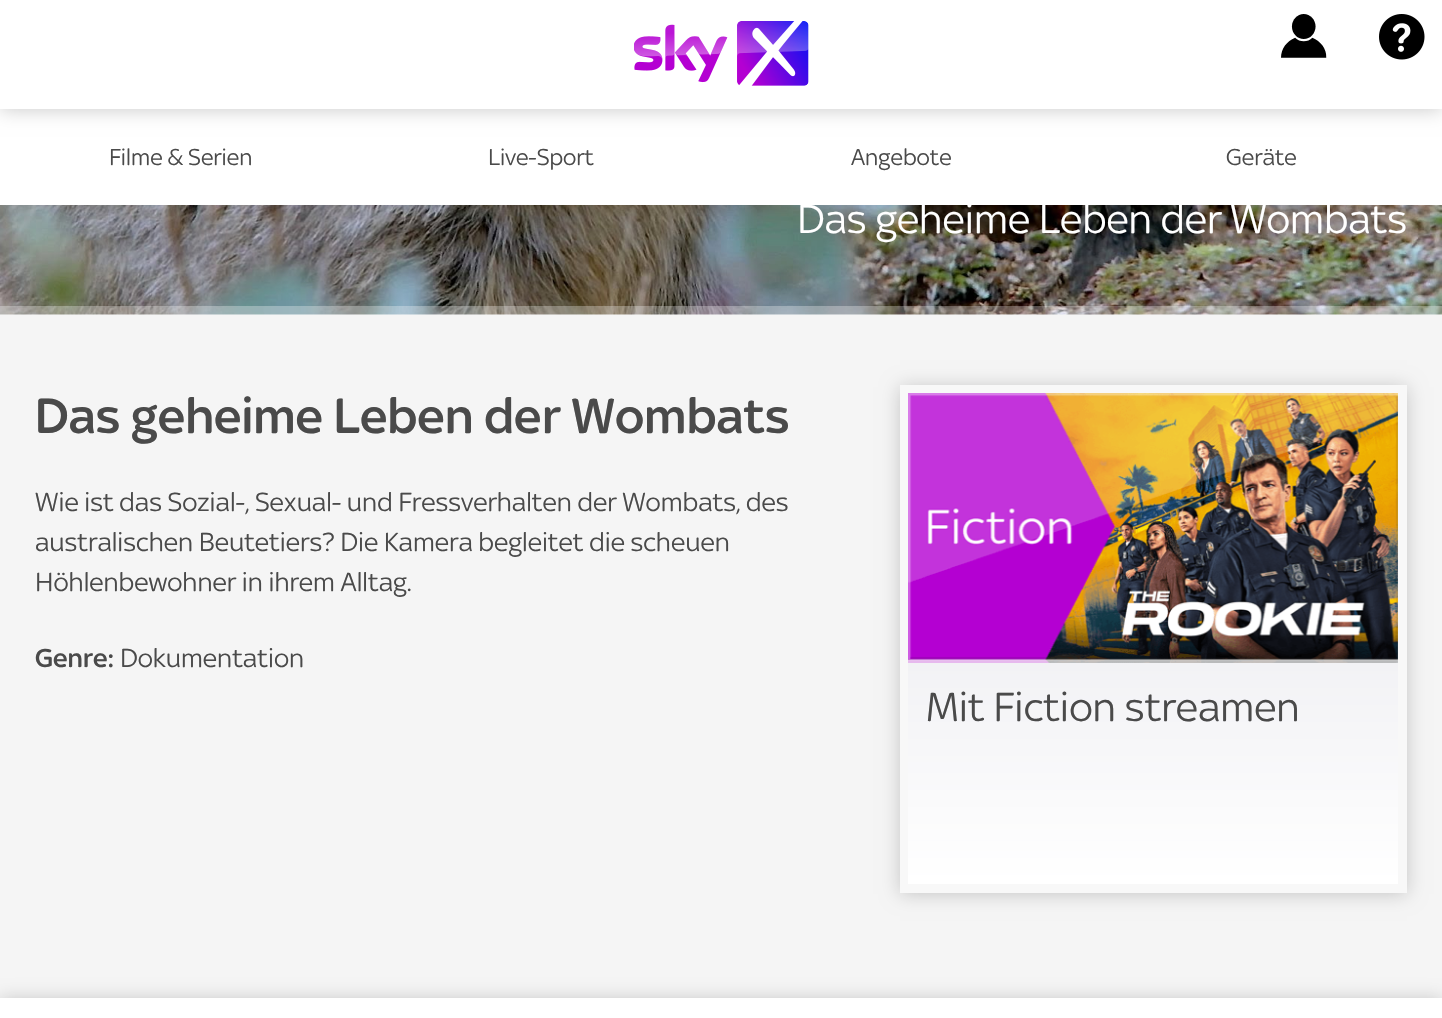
#include "include/core/SkBlurTypes.h"
#include "include/core/SkCanvas.h"
#include "include/core/SkData.h"
#include "include/core/SkFont.h"
#include "include/core/SkFontMgr.h"
#include "include/core/SkImage.h"
#include "include/core/SkMaskFilter.h"
#include "include/core/SkPaint.h"
#include "include/core/SkPathBuilder.h"
#include "include/core/SkTextBlob.h"
#include "include/effects/SkDashPathEffect.h"
#include "include/effects/SkGradientShader.h"
#include "include/utils/SkParsePath.h"

extern sk_sp<SkFontMgr> fontMgr;

void draw(SkCanvas* canvas) {
    SkPaint p;
    p.setAntiAlias(true);
    auto font = [&](const char* family, int weight, float size, bool italic = false) {
        SkFontStyle style(weight, SkFontStyle::kNormal_Width,
            italic ? SkFontStyle::kItalic_Slant : SkFontStyle::kUpright_Slant);
        SkFont result(fontMgr->matchFamilyStyle(family, style), size);
        result.setSubpixel(true);
        return result;
    };
    auto drawPhoto = [&](const char* path, float l, float t, float r, float b) {
        auto image = SkImages::DeferredFromEncodedData(SkData::MakeFromFileName(path));
        canvas->drawImageRect(image, SkRect::MakeLTRB(l, t, r, b), SkSamplingOptions());
    };
    canvas->clear(0xFFF5F5F5);
    p.setColor(0xFFFFFFFF);
    canvas->drawRect(SkRect::MakeLTRB(0, 109, 1442, 205), p);
    p.setColor(0x33000000);
    p.setMaskFilter(SkMaskFilter::MakeBlur(kNormal_SkBlurStyle, 9));
    canvas->drawRect(SkRect::MakeLTRB(0, 2, 1442, 110), p);
    p.setMaskFilter(nullptr);
    p.setColor(0xFFFFFFFF);
    canvas->drawRect(SkRect::MakeLTRB(0, 0, 1442, 109), p);
    drawPhoto("media/1.png", 634, 21, 809, 86);
    drawPhoto("media/2.png", 1281, 14, 1327, 58);
    drawPhoto("media/3.png", 1379, 14, 1425, 60);
    auto font1 = font("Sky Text", 400, 24.5f);
    p.setColor(0xFF4A4A4A);
    {
        const struct { const char* s; float x, y; } items[] = {
            {"Filme & Serien", 109, 165},
            {"Live-Sport", 488, 165},
            {"Angebote", 851, 165},
            {"Geräte", 1226, 165},
        };
        for (auto [s, x, y] : items) {
            canvas->drawString(s, x, y, font1, p);
        }
    }
    drawPhoto("media/4.png", 0, 205, 1442, 315);
    auto font2 = font("Sky Text", 400, 43.5f);
    p.setColor(0xFFFFFFFF);
    canvas->drawString("Das geheime Leben der Wombats", 797, 233, font2, p);
    p.setColor(0x4DFFFFFF);
    canvas->drawRect(SkRect::MakeLTRB(0, 306, 1442, 315), p);
    auto font3 = font("Sky Text", 500, 52.9f);
    p.setColor(0xFF4A4A4A);
    canvas->drawString("Das geheime Leben der Wombats", 35, 433, font3, p);
    auto font4 = font("Sky Text", 400, 28);
    {
        const struct { const char* s; float x, y; } items[] = {
            {"Wie ist das Sozial-, Sexual- und Fressverhalten der Wombats, des", 35, 511},
            {"australischen Beutetiers? Die Kamera begleitet die scheuen", 35, 551},
            {"Höhlenbewohner in ihrem Alltag.", 35, 591},
        };
        for (auto [s, x, y] : items) {
            canvas->drawString(s, x, y, font4, p);
        }
    }
    auto font5 = font("Sky Text", 500, 28);
    canvas->drawString("Genre:", 35, 667, font5, p);
    canvas->drawString("Dokumentation", 120, 667, font4, p);
    canvas->save();
    canvas->clipPath(SkPathBuilder(SkPathFillType::kEvenOdd).moveTo(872, 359).lineTo(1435, 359).lineTo(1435, 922).lineTo(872, 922).close().moveTo(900, 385).lineTo(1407, 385).lineTo(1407, 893).lineTo(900, 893).close().detach(), true);
    p.setColor(0x33000000);
    p.setMaskFilter(SkMaskFilter::MakeBlur(kNormal_SkBlurStyle, 9));
    canvas->drawRect(SkRect::MakeLTRB(900, 387, 1407, 894), p);
    p.setMaskFilter(nullptr);
    canvas->restore();
    p.setColor(0x4DFFFFFF);
    canvas->drawRect(SkRect::MakeLTRB(900, 385, 1407, 893), p);
    drawPhoto("media/5.png", 908, 393, 1398, 663);
    {
        const SkColor colors[] = {0xFFF2F2F5, 0xFFFFFFFF};
        const float stops[] = {0, 1};
        const SkPoint ends[] = {{1153, 663}, {1153, 884}};
        p.setShader(SkGradientShader::MakeLinear(ends, colors, stops, 2, SkTileMode::kClamp));
        p.setAlpha(255);
    }
    canvas->drawRect(SkRect::MakeLTRB(908, 663, 1398, 884), p);
    p.setShader(nullptr);
    p.setColor(0xFF4A4A4A);
    canvas->drawString("Mit Fiction streamen", 926, 721, font2, p);
    p.setColor(0x33000000);
    p.setMaskFilter(SkMaskFilter::MakeBlur(kNormal_SkBlurStyle, 9));
    canvas->drawRect(SkRect::MakeLTRB(0, 999, 1442, 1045), p);
    p.setMaskFilter(nullptr);
    p.setColor(0xFFFFFFFF);
    canvas->drawRect(SkRect::MakeLTRB(0, 998, 1442, 1018), p);
}
